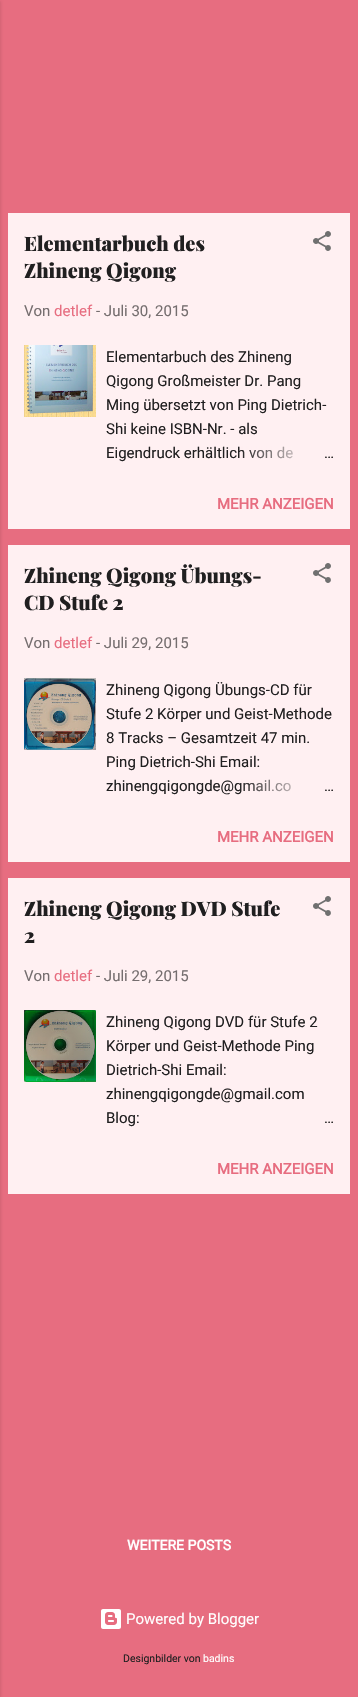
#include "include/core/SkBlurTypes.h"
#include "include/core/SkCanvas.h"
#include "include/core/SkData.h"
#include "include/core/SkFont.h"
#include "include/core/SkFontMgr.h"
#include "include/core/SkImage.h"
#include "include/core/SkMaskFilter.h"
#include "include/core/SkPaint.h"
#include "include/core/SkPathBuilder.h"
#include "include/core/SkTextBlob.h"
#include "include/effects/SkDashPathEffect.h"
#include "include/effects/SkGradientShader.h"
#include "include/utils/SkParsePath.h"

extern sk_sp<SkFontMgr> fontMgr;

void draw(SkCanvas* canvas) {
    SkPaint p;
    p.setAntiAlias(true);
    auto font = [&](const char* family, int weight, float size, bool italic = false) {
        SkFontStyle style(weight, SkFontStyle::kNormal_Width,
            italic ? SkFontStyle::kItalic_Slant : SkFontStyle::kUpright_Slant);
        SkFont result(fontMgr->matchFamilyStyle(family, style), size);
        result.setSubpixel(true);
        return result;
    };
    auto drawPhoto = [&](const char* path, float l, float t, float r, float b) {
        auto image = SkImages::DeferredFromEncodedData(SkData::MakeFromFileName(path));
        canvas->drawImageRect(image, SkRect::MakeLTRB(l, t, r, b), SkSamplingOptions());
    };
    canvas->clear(0xFFE76D80);
    p.setColor(0x1A000000);
    p.setMaskFilter(SkMaskFilter::MakeBlur(kNormal_SkBlurStyle, 1.5f));
    canvas->drawRect(SkRect::MakeLTRB(-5, 1, 1, 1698), p);
    p.setMaskFilter(nullptr);
    p.setColor(0xFFFFF0F2);
    canvas->drawRect(SkRect::MakeLTRB(8, 213, 350, 529), p);
    auto font1 = font("Playfair Display", 900, 20);
    p.setColor(0xFF201F20);
    canvas->drawString("Elementarbuch des", 24, 251, font1, p);
    canvas->drawString("Zhineng Qigong", 24, 278, font1, p);
    drawPhoto("media/1.png", 313, 231, 331, 251);
    auto font2 = font("Roboto", 400, 15);
    p.setColor(0xFF756E6F);
    canvas->drawString("Von", 24, 316, font2, p);
    p.setColor(0xFFE76D80);
    canvas->drawString("detlef", 54, 316, font2, p);
    p.setColor(0xFF756E6F);
    canvas->drawString("- Juli 30, 2015", 96, 316, font2, p);
    drawPhoto("media/2.png", 24, 345, 96, 417);
    p.setColor(0xFF201F20);
    {
        const struct { const char* s; float x, y; } items[] = {
            {"Elementarbuch des Zhineng", 106, 362},
            {"Qigong Großmeister Dr. Pang", 106, 386},
            {"Ming übersetzt von Ping Dietrich-", 106, 410},
            {"Shi keine ISBN-Nr. - als", 106, 434},
            {"Eigendruck erhältlich von de", 106, 458},
        };
        for (auto [s, x, y] : items) {
            canvas->drawString(s, x, y, font2, p);
        }
    }
    {
        const SkColor colors[] = {0xFFFFF0F2, 0xFFFFF0F2, 0x00FFF0F2};
        const float stops[] = {0, 0.2f, 1};
        const SkPoint ends[] = {{334, 453}, {238, 453}};
        p.setShader(SkGradientShader::MakeLinear(ends, colors, stops, 3, SkTileMode::kClamp));
        p.setAlpha(255);
    }
    canvas->drawRect(SkRect::MakeLTRB(240, 446, 293, 459), p);
    p.setShader(nullptr);
    p.setColor(0xFF201F20);
    canvas->drawString("…", 324, 458, font2, p);
    auto font3 = font("Roboto", 700, 15);
    p.setColor(0xFFE76D80);
    canvas->drawString("MEHR ANZEIGEN", 217, 509, font3, p);
    p.setColor(0xFFFFF0F2);
    canvas->drawRect(SkRect::MakeLTRB(8, 545, 350, 862), p);
    p.setColor(0xFF201F20);
    canvas->drawString("Zhineng Qigong Übungs-", 24, 583, font1, p);
    canvas->drawString("CD Stufe 2", 24, 610, font1, p);
    drawPhoto("media/1.png", 313, 563, 331, 583);
    p.setColor(0xFF756E6F);
    canvas->drawString("Von", 24, 648, font2, p);
    p.setColor(0xFFE76D80);
    canvas->drawString("detlef", 54, 648, font2, p);
    p.setColor(0xFF756E6F);
    canvas->drawString("- Juli 29, 2015", 96, 648, font2, p);
    drawPhoto("media/3.png", 24, 678, 96, 750);
    p.setColor(0xFF201F20);
    {
        const struct { const char* s; float x, y; } items[] = {
            {"Zhineng Qigong Übungs-CD für", 106, 695},
            {"Stufe 2 Körper und Geist-Methode", 106, 719},
            {"8 Tracks – Gesamtzeit 47 min.", 106, 743},
            {"Ping Dietrich-Shi Email:", 106, 767},
            {"zhinengqigongde@gmail.co", 106, 791},
        };
        for (auto [s, x, y] : items) {
            canvas->drawString(s, x, y, font2, p);
        }
    }
    {
        const SkColor colors[] = {0xFFFFF0F2, 0xFFFFF0F2, 0x00FFF0F2};
        const float stops[] = {0, 0.2f, 1};
        const SkPoint ends[] = {{334, 786}, {238, 786}};
        p.setShader(SkGradientShader::MakeLinear(ends, colors, stops, 3, SkTileMode::kClamp));
        p.setAlpha(255);
    }
    canvas->drawRect(SkRect::MakeLTRB(240, 779, 292, 794), p);
    p.setShader(nullptr);
    p.setColor(0xFF201F20);
    canvas->drawString("…", 324, 791, font2, p);
    p.setColor(0xFFE76D80);
    canvas->drawString("MEHR ANZEIGEN", 217, 842, font3, p);
    p.setColor(0xFFFFF0F2);
    canvas->drawRect(SkRect::MakeLTRB(8, 878, 350, 1194), p);
    p.setColor(0xFF201F20);
    canvas->drawString("Zhineng Qigong DVD Stufe", 24, 916, font1, p);
    canvas->drawString("2", 24, 943, font1, p);
    drawPhoto("media/1.png", 313, 896, 331, 916);
    p.setColor(0xFF756E6F);
    canvas->drawString("Von", 24, 981, font2, p);
    p.setColor(0xFFE76D80);
    canvas->drawString("detlef", 54, 981, font2, p);
    p.setColor(0xFF756E6F);
    canvas->drawString("- Juli 29, 2015", 96, 981, font2, p);
    drawPhoto("media/4.png", 24, 1010, 96, 1082);
    p.setColor(0xFF201F20);
    {
        const struct { const char* s; float x, y; } items[] = {
            {"Zhineng Qigong DVD für Stufe 2", 106, 1027},
            {"Körper und Geist-Methode Ping", 106, 1051},
            {"Dietrich-Shi Email:", 106, 1075},
            {"zhinengqigongde@gmail.com", 106, 1099},
            {"Blog:", 106, 1123},
            {"…", 324, 1123},
        };
        for (auto [s, x, y] : items) {
            canvas->drawString(s, x, y, font2, p);
        }
    }
    p.setColor(0xFFE76D80);
    canvas->drawString("MEHR ANZEIGEN", 217, 1174, font3, p);
    auto font4 = font("Roboto", 700, 14);
    p.setColor(0xFFFFFFFF);
    canvas->drawString("WEITERE POSTS", 127, 1550, font4, p);
    drawPhoto("media/5.png", 101, 1609, 121, 1629);
    canvas->drawString("Powered by Blogger", 126, 1624, font2, p);
    auto font5 = font("Roboto", 400, 10.5f);
    p.setColor(0xFF201F20);
    canvas->drawString("Designbilder von", 123, 1662, font5, p);
    p.setColor(0xFFFFFFFF);
    canvas->drawString("badins", 203, 1662, font5, p);
}
